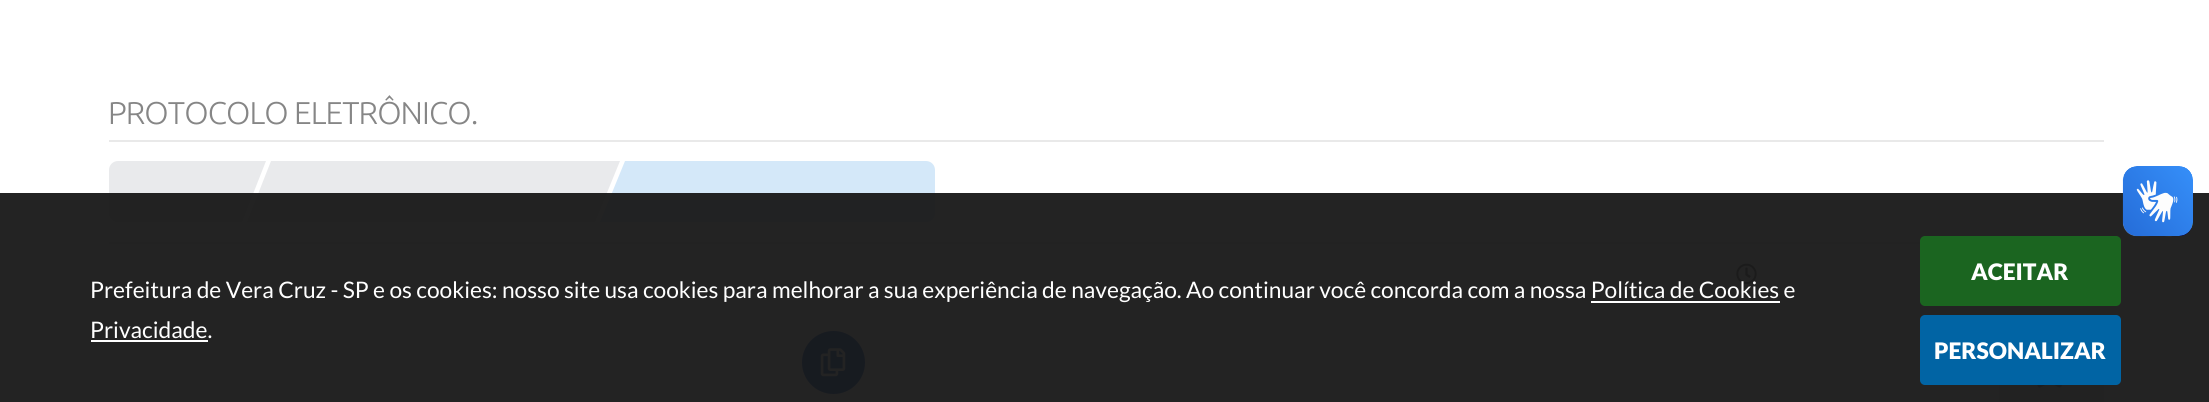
#include <cairo.h>
#include <math.h>
#include <stddef.h>

static cairo_t *ctx;

static void use_color(int r, int g, int b) {
    cairo_set_source_rgb(ctx, r / 255.0, g / 255.0, b / 255.0);
}

static void spaced_text(double x, double y, const char *s, double letter, double word) {
    cairo_move_to(ctx, x, y);
    while (*s) {
        char ch[5] = {0};
        int n = 0;
        do ch[n++] = *s++; while ((*s & 0xC0) == 0x80);
        cairo_show_text(ctx, ch);
        cairo_rel_move_to(ctx, letter + word * (*ch == ' '), 0);
    }
}

static void round_rect(double x, double y, double w, double h, double r) {
    cairo_new_sub_path(ctx);
    cairo_arc(ctx, x + w - r, y + h - r, r, 0, M_PI / 2);
    cairo_arc(ctx, x + r, y + h - r, r, M_PI / 2, M_PI);
    cairo_arc(ctx, x + r, y + r, r, M_PI, 1.5 * M_PI);
    cairo_arc(ctx, x + w - r, y + r, r, 1.5 * M_PI, 2 * M_PI);
    cairo_close_path(ctx);
}

static void picture(const char *path, double x, double y, double w, double h) {
    cairo_surface_t *image = cairo_image_surface_create_from_png(path);
    cairo_save(ctx);
    cairo_set_source_surface(ctx, image, x, y);
    cairo_rectangle(ctx, x, y, w, h);
    cairo_fill(ctx);
    cairo_restore(ctx);
    cairo_surface_destroy(image);
}

int main(void) {
    cairo_surface_t *surface = cairo_image_surface_create(CAIRO_FORMAT_RGB24, 2209, 402);
    ctx = cairo_create(surface);
    cairo_font_options_t *options = cairo_font_options_create();
    cairo_font_options_set_hint_metrics(options, CAIRO_HINT_METRICS_OFF);
    cairo_font_options_set_hint_style(options, CAIRO_HINT_STYLE_NONE);
    cairo_set_font_options(ctx, options);
    cairo_set_miter_limit(ctx, 4);
    use_color(255, 255, 255);
    cairo_paint(ctx);
    cairo_select_font_face(ctx, "Ubuntu Light", CAIRO_FONT_SLANT_NORMAL, CAIRO_FONT_WEIGHT_NORMAL);
    cairo_set_font_size(ctx, 31.5);
    use_color(134, 134, 134);
    spaced_text(108, 124, "PROTOCOLO ELETRÔNICO.", -0.9, 0);
    use_color(233, 233, 233);
    cairo_rectangle(ctx, 109, 140, 1995, 2);
    cairo_fill(ctx);
    cairo_rectangle(ctx, 109, 242, 1811, 2);
    cairo_fill(ctx);
    use_color(233, 234, 236);
    cairo_new_path(ctx);
    cairo_move_to(ctx, 118, 161);
    cairo_line_to(ctx, 242, 161);
    cairo_line_to(ctx, 242, 222);
    cairo_line_to(ctx, 118, 222);
    cairo_curve_to(ctx, 113, 222, 109, 218, 109, 213);
    cairo_line_to(ctx, 109, 170);
    cairo_curve_to(ctx, 109, 165, 113, 161, 118, 161);
    cairo_close_path(ctx);
    cairo_fill(ctx);
    cairo_new_path(ctx);
    cairo_move_to(ctx, 242, 161);
    cairo_line_to(ctx, 266, 161);
    cairo_line_to(ctx, 242, 222);
    cairo_close_path(ctx);
    cairo_fill(ctx);
    cairo_rectangle(ctx, 271, 161, 324, 61);
    cairo_fill(ctx);
    cairo_new_path(ctx);
    cairo_move_to(ctx, 271, 222);
    cairo_line_to(ctx, 247, 222);
    cairo_line_to(ctx, 271, 161);
    cairo_close_path(ctx);
    cairo_fill(ctx);
    cairo_new_path(ctx);
    cairo_move_to(ctx, 595, 161);
    cairo_line_to(ctx, 620, 161);
    cairo_line_to(ctx, 595, 222);
    cairo_close_path(ctx);
    cairo_fill(ctx);
    use_color(212, 232, 249);
    cairo_new_path(ctx);
    cairo_move_to(ctx, 625, 161);
    cairo_line_to(ctx, 926, 161);
    cairo_curve_to(ctx, 931, 161, 935, 165, 935, 170);
    cairo_line_to(ctx, 935, 213);
    cairo_curve_to(ctx, 935, 218, 931, 222, 926, 222);
    cairo_line_to(ctx, 625, 222);
    cairo_close_path(ctx);
    cairo_fill(ctx);
    cairo_new_path(ctx);
    cairo_move_to(ctx, 625, 222);
    cairo_line_to(ctx, 600, 222);
    cairo_line_to(ctx, 625, 161);
    cairo_close_path(ctx);
    cairo_fill(ctx);
    picture("img1.png", 1736, 263, 21, 21);
    use_color(7, 83, 200);
    cairo_arc(ctx, 833.5, 362.5, 31.5, 0, 2 * M_PI);
    cairo_fill(ctx);
    picture("img2.png", 820, 348, 26, 29);
    use_color(241, 243, 244);
    cairo_rectangle(ctx, 1999, 385, 105, 14);
    cairo_fill(ctx);
    picture("img3.png", 2037, 385, 25, 3);
    use_color(232, 235, 237);
    cairo_rectangle(ctx, 1999, 399, 105, 3);
    cairo_fill(ctx);
    cairo_set_source_rgba(ctx, 0.098, 0.098, 0.098, 0.95);
    cairo_rectangle(ctx, 0, 193, 2209, 209);
    cairo_fill(ctx);
    picture("img4.png", 2122, 166, 71, 71);
    picture("img5.png", 2123, 166, 70, 70);
    cairo_select_font_face(ctx, "Lato", CAIRO_FONT_SLANT_NORMAL, CAIRO_FONT_WEIGHT_NORMAL);
    cairo_set_font_size(ctx, 22.75);
    use_color(255, 255, 255);
    cairo_move_to(ctx, 90, 298);
    cairo_show_text(ctx, "Prefeitura de Vera Cruz - SP e os cookies: nosso site usa cookies para melhorar a sua experiência de navegação. Ao continuar você concorda com a nossa Política de Cookies e");
    cairo_move_to(ctx, 90, 338);
    cairo_show_text(ctx, "Privacidade.");
    cairo_rectangle(ctx, 1591, 301, 189, 2);
    cairo_fill(ctx);
    cairo_rectangle(ctx, 91, 340, 117, 2);
    cairo_fill(ctx);
    use_color(27, 101, 32);
    round_rect(1920, 236, 201, 70, 5);
    cairo_fill(ctx);
    cairo_select_font_face(ctx, "Lato Black", CAIRO_FONT_SLANT_NORMAL, CAIRO_FONT_WEIGHT_NORMAL);
    use_color(255, 255, 255);
    cairo_move_to(ctx, 1971, 280);
    cairo_show_text(ctx, "ACEITAR");
    use_color(1, 100, 164);
    round_rect(1920, 315, 201, 70, 5);
    cairo_fill(ctx);
    use_color(255, 255, 255);
    cairo_move_to(ctx, 1934, 359);
    cairo_show_text(ctx, "PERSONALIZAR");
    cairo_surface_write_to_png(surface, "result.png");
    cairo_font_options_destroy(options);
    cairo_destroy(ctx);
    cairo_surface_destroy(surface);
    return 0;
}
